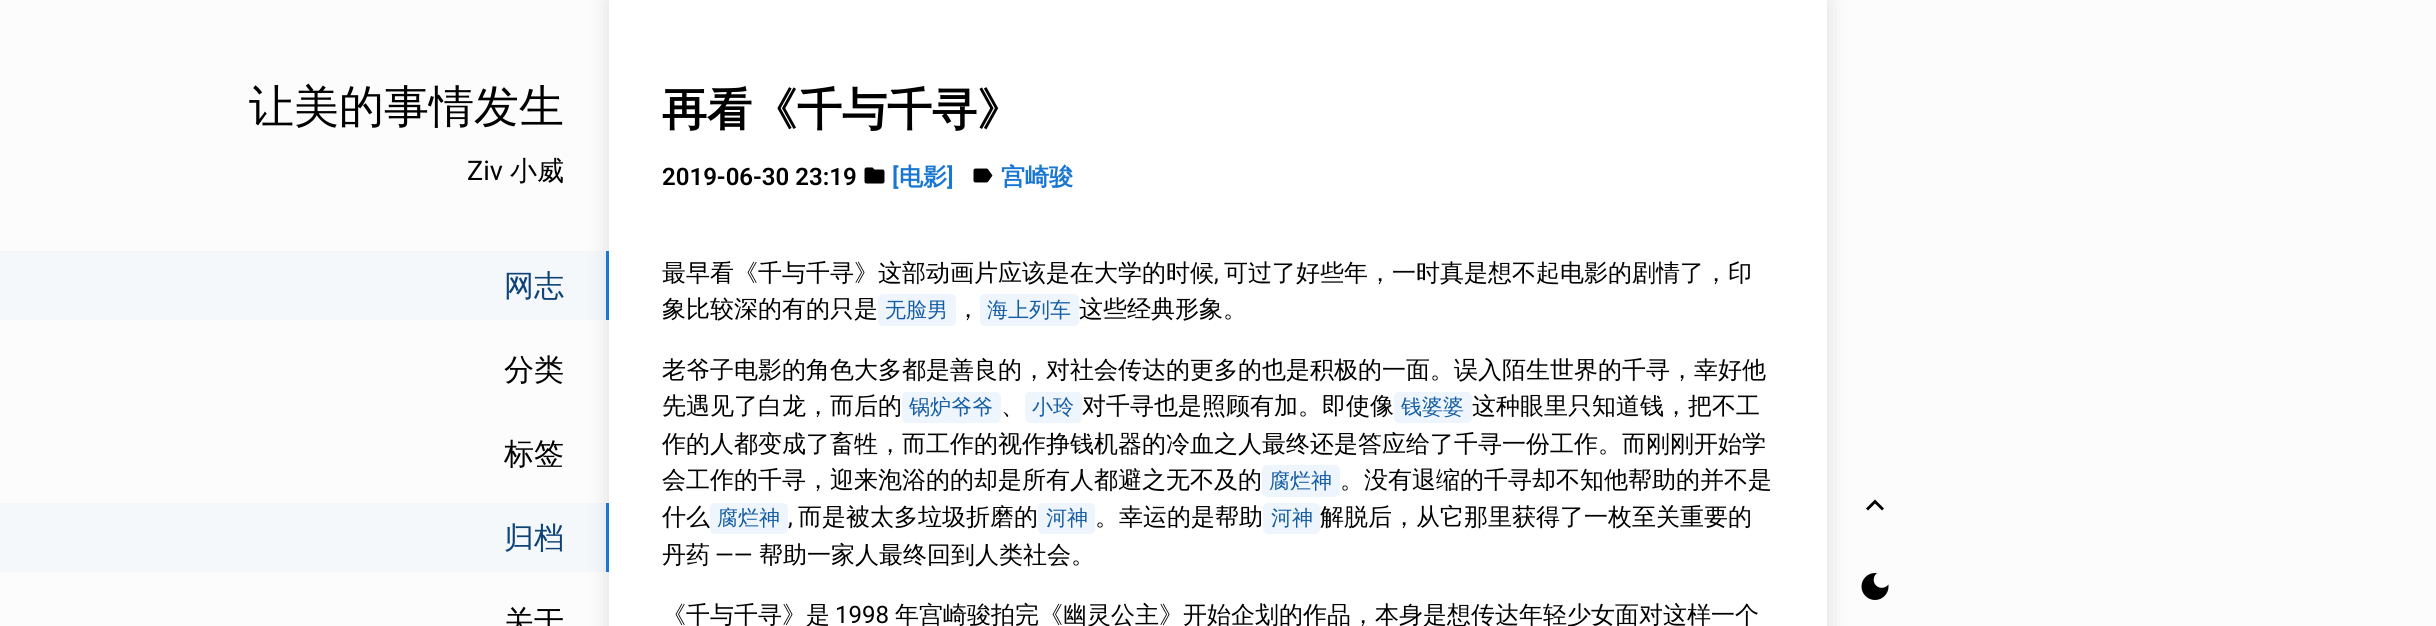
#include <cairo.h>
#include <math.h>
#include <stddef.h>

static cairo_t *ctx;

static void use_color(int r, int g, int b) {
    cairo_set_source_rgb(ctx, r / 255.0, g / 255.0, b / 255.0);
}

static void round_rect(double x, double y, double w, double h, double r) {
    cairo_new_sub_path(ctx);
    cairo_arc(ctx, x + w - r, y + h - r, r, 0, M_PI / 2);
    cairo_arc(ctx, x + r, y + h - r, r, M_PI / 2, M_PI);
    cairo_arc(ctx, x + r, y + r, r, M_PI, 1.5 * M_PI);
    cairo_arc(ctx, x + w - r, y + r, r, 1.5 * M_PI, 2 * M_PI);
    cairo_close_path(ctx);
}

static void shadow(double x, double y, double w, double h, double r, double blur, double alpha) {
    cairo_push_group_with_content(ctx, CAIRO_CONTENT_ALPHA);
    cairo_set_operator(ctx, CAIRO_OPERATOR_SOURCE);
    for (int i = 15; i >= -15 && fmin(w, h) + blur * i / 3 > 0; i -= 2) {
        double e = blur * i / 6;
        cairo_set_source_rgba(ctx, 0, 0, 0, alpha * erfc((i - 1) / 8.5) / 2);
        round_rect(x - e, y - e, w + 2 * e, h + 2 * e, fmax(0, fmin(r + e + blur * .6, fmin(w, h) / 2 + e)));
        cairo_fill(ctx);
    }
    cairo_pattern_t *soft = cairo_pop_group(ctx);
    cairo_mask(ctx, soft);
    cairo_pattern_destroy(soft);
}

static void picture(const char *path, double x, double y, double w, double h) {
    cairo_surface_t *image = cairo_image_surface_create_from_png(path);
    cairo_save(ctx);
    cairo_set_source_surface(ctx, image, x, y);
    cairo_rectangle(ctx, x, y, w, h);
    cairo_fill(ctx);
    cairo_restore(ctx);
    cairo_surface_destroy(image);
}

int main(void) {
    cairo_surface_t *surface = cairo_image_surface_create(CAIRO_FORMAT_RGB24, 2436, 626);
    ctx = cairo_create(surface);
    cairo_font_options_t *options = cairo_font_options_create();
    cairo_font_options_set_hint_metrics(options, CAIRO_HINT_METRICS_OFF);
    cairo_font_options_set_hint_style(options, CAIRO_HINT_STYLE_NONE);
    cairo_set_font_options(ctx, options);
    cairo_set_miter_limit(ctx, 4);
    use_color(252, 252, 252);
    cairo_paint(ctx);
    cairo_select_font_face(ctx, "WenQuanYi Zen Hei Medium", CAIRO_FONT_SLANT_NORMAL, CAIRO_FONT_WEIGHT_NORMAL);
    cairo_set_font_size(ctx, 45);
    use_color(0, 0, 0);
    cairo_move_to(ctx, 249, 122);
    cairo_show_text(ctx, "让美的事情发生");
    cairo_select_font_face(ctx, "Roboto", CAIRO_FONT_SLANT_NORMAL, CAIRO_FONT_WEIGHT_NORMAL);
    cairo_set_font_size(ctx, 27);
    cairo_move_to(ctx, 467, 180);
    cairo_show_text(ctx, "Ziv");
    cairo_select_font_face(ctx, "WenQuanYi Zen Hei Medium", CAIRO_FONT_SLANT_NORMAL, CAIRO_FONT_WEIGHT_NORMAL);
    cairo_move_to(ctx, 510, 180);
    cairo_show_text(ctx, "小威");
    use_color(0, 0, 0);
    shadow(609, 0, 1218, 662, 0, 12, 0.12);
    cairo_set_source_rgba(ctx, 0.098, 0.463, 0.824, 0.03);
    cairo_rectangle(ctx, 0, 251, 606, 69);
    cairo_fill(ctx);
    use_color(25, 118, 210);
    cairo_rectangle(ctx, 606, 251, 3, 69);
    cairo_fill(ctx);
    cairo_set_font_size(ctx, 30);
    use_color(14, 67, 119);
    cairo_move_to(ctx, 504, 296);
    cairo_show_text(ctx, "网志");
    use_color(0, 0, 0);
    cairo_move_to(ctx, 504, 380);
    cairo_show_text(ctx, "分类");
    cairo_move_to(ctx, 504, 464);
    cairo_show_text(ctx, "标签");
    cairo_set_source_rgba(ctx, 0.098, 0.463, 0.824, 0.03);
    cairo_rectangle(ctx, 0, 503, 606, 69);
    cairo_fill(ctx);
    use_color(25, 118, 210);
    cairo_rectangle(ctx, 606, 503, 3, 69);
    cairo_fill(ctx);
    use_color(14, 67, 119);
    cairo_move_to(ctx, 504, 548);
    cairo_show_text(ctx, "归档");
    use_color(0, 0, 0);
    cairo_move_to(ctx, 504, 632);
    cairo_show_text(ctx, "关于");
    use_color(255, 255, 255);
    cairo_rectangle(ctx, 609, 0, 1218, 626);
    cairo_fill(ctx);
    cairo_select_font_face(ctx, "WenQuanYi Zen Hei", CAIRO_FONT_SLANT_NORMAL, CAIRO_FONT_WEIGHT_BOLD);
    cairo_set_font_size(ctx, 45);
    use_color(0, 0, 0);
    cairo_move_to(ctx, 662, 125);
    cairo_show_text(ctx, "再看《千与千寻》");
    cairo_select_font_face(ctx, "Roboto SemiBold", CAIRO_FONT_SLANT_NORMAL, CAIRO_FONT_WEIGHT_NORMAL);
    cairo_set_font_size(ctx, 24);
    cairo_move_to(ctx, 662, 185);
    cairo_show_text(ctx, "2019-06-30 23:19");
    picture("img1.png", 864, 167, 21, 17);
    use_color(25, 118, 210);
    cairo_move_to(ctx, 892, 185);
    cairo_show_text(ctx, "[");
    cairo_select_font_face(ctx, "WenQuanYi Zen Hei", CAIRO_FONT_SLANT_NORMAL, CAIRO_FONT_WEIGHT_BOLD);
    cairo_move_to(ctx, 899, 185);
    cairo_show_text(ctx, "电影");
    cairo_select_font_face(ctx, "Roboto SemiBold", CAIRO_FONT_SLANT_NORMAL, CAIRO_FONT_WEIGHT_NORMAL);
    cairo_move_to(ctx, 947, 185);
    cairo_show_text(ctx, "]");
    picture("img2.png", 973, 168, 20, 15);
    cairo_select_font_face(ctx, "WenQuanYi Zen Hei", CAIRO_FONT_SLANT_NORMAL, CAIRO_FONT_WEIGHT_BOLD);
    cairo_move_to(ctx, 1001, 185);
    cairo_show_text(ctx, "宫崎骏");
    cairo_select_font_face(ctx, "WenQuanYi Zen Hei Medium", CAIRO_FONT_SLANT_NORMAL, CAIRO_FONT_WEIGHT_NORMAL);
    use_color(0, 0, 0);
    cairo_move_to(ctx, 662, 281);
    cairo_show_text(ctx, "最早看《千与千寻》这部动画片应该是在大学的时候");
    cairo_select_font_face(ctx, "Roboto", CAIRO_FONT_SLANT_NORMAL, CAIRO_FONT_WEIGHT_NORMAL);
    cairo_move_to(ctx, 1214, 281);
    cairo_show_text(ctx, ",");
    cairo_select_font_face(ctx, "WenQuanYi Zen Hei Medium", CAIRO_FONT_SLANT_NORMAL, CAIRO_FONT_WEIGHT_NORMAL);
    cairo_move_to(ctx, 1224, 281);
    cairo_show_text(ctx, "可过了好些年，一时真是想不起电影的剧情了，印");
    cairo_move_to(ctx, 662, 317);
    cairo_show_text(ctx, "象比较深的有的只是");
    use_color(239, 245, 252);
    round_rect(878, 294, 78, 32, 5);
    cairo_fill(ctx);
    cairo_set_font_size(ctx, 21);
    use_color(20, 92, 164);
    cairo_move_to(ctx, 885, 317);
    cairo_show_text(ctx, "无脸男");
    cairo_set_font_size(ctx, 24);
    use_color(0, 0, 0);
    cairo_move_to(ctx, 956, 317);
    cairo_show_text(ctx, "，");
    use_color(239, 245, 252);
    round_rect(980, 294, 99, 32, 5);
    cairo_fill(ctx);
    cairo_set_font_size(ctx, 21);
    use_color(20, 92, 164);
    cairo_move_to(ctx, 987, 317);
    cairo_show_text(ctx, "海上列车");
    cairo_set_font_size(ctx, 24);
    use_color(0, 0, 0);
    cairo_move_to(ctx, 1079, 317);
    cairo_show_text(ctx, "这些经典形象。");
    cairo_move_to(ctx, 662, 378);
    cairo_show_text(ctx, "老爷子电影的角色大多都是善良的，对社会传达的更多的也是积极的一面。误入陌生世界的千寻，幸好他");
    cairo_move_to(ctx, 662, 414);
    cairo_show_text(ctx, "先遇见了白龙，而后的");
    use_color(239, 245, 252);
    round_rect(902, 392, 99, 31, 5);
    cairo_fill(ctx);
    cairo_set_font_size(ctx, 21);
    use_color(20, 92, 164);
    cairo_move_to(ctx, 909, 414);
    cairo_show_text(ctx, "锅炉爷爷");
    cairo_set_font_size(ctx, 24);
    use_color(0, 0, 0);
    cairo_move_to(ctx, 1001, 414);
    cairo_show_text(ctx, "、");
    use_color(239, 245, 252);
    round_rect(1025, 392, 57, 31, 5);
    cairo_fill(ctx);
    cairo_set_font_size(ctx, 21);
    use_color(20, 92, 164);
    cairo_move_to(ctx, 1032, 414);
    cairo_show_text(ctx, "小玲");
    cairo_set_font_size(ctx, 24);
    use_color(0, 0, 0);
    cairo_move_to(ctx, 1082, 414);
    cairo_show_text(ctx, "对千寻也是照顾有加。即使像");
    use_color(239, 245, 252);
    round_rect(1394, 392, 78, 31, 5);
    cairo_fill(ctx);
    cairo_set_font_size(ctx, 21);
    use_color(20, 92, 164);
    cairo_move_to(ctx, 1401, 414);
    cairo_show_text(ctx, "钱婆婆");
    cairo_set_font_size(ctx, 24);
    use_color(0, 0, 0);
    cairo_move_to(ctx, 1472, 414);
    cairo_show_text(ctx, "这种眼里只知道钱，把不工");
    cairo_move_to(ctx, 662, 452);
    cairo_show_text(ctx, "作的人都变成了畜牲，而工作的视作挣钱机器的冷血之人最终还是答应给了千寻一份工作。而刚刚开始学");
    cairo_move_to(ctx, 662, 488);
    cairo_show_text(ctx, "会工作的千寻，迎来泡浴的的却是所有人都避之无不及的");
    use_color(239, 245, 252);
    round_rect(1262, 465, 78, 32, 5);
    cairo_fill(ctx);
    cairo_set_font_size(ctx, 21);
    use_color(20, 92, 164);
    cairo_move_to(ctx, 1269, 488);
    cairo_show_text(ctx, "腐烂神");
    cairo_set_font_size(ctx, 24);
    use_color(0, 0, 0);
    cairo_move_to(ctx, 1340, 488);
    cairo_show_text(ctx, "。没有退缩的千寻却不知他帮助的并不是");
    cairo_move_to(ctx, 662, 525);
    cairo_show_text(ctx, "什么");
    use_color(239, 245, 252);
    round_rect(710, 503, 78, 31, 5);
    cairo_fill(ctx);
    cairo_set_font_size(ctx, 21);
    use_color(20, 92, 164);
    cairo_move_to(ctx, 717, 525);
    cairo_show_text(ctx, "腐烂神");
    cairo_select_font_face(ctx, "Roboto", CAIRO_FONT_SLANT_NORMAL, CAIRO_FONT_WEIGHT_NORMAL);
    cairo_set_font_size(ctx, 24);
    use_color(0, 0, 0);
    cairo_move_to(ctx, 788, 525);
    cairo_show_text(ctx, ",");
    cairo_select_font_face(ctx, "WenQuanYi Zen Hei Medium", CAIRO_FONT_SLANT_NORMAL, CAIRO_FONT_WEIGHT_NORMAL);
    cairo_move_to(ctx, 798, 525);
    cairo_show_text(ctx, "而是被太多垃圾折磨的");
    use_color(239, 245, 252);
    round_rect(1038, 503, 57, 31, 5);
    cairo_fill(ctx);
    cairo_set_font_size(ctx, 21);
    use_color(20, 92, 164);
    cairo_move_to(ctx, 1046, 525);
    cairo_show_text(ctx, "河神");
    cairo_set_font_size(ctx, 24);
    use_color(0, 0, 0);
    cairo_move_to(ctx, 1095, 525);
    cairo_show_text(ctx, "。幸运的是帮助");
    use_color(239, 245, 252);
    round_rect(1263, 503, 57, 31, 5);
    cairo_fill(ctx);
    cairo_set_font_size(ctx, 21);
    use_color(20, 92, 164);
    cairo_move_to(ctx, 1271, 525);
    cairo_show_text(ctx, "河神");
    cairo_set_font_size(ctx, 24);
    use_color(0, 0, 0);
    cairo_move_to(ctx, 1320, 525);
    cairo_show_text(ctx, "解脱后，从它那里获得了一枚至关重要的");
    cairo_move_to(ctx, 662, 563);
    cairo_show_text(ctx, "丹药");
    cairo_select_font_face(ctx, "Roboto", CAIRO_FONT_SLANT_NORMAL, CAIRO_FONT_WEIGHT_NORMAL);
    cairo_move_to(ctx, 715, 563);
    cairo_show_text(ctx, "——");
    cairo_select_font_face(ctx, "WenQuanYi Zen Hei Medium", CAIRO_FONT_SLANT_NORMAL, CAIRO_FONT_WEIGHT_NORMAL);
    cairo_move_to(ctx, 759, 563);
    cairo_show_text(ctx, "帮助一家人最终回到人类社会。");
    cairo_move_to(ctx, 662, 623);
    cairo_show_text(ctx, "《千与千寻》是");
    cairo_select_font_face(ctx, "Roboto", CAIRO_FONT_SLANT_NORMAL, CAIRO_FONT_WEIGHT_NORMAL);
    cairo_move_to(ctx, 835, 623);
    cairo_show_text(ctx, "1998");
    cairo_select_font_face(ctx, "WenQuanYi Zen Hei Medium", CAIRO_FONT_SLANT_NORMAL, CAIRO_FONT_WEIGHT_NORMAL);
    cairo_move_to(ctx, 895, 623);
    cairo_show_text(ctx, "年宫崎骏拍完《幽灵公主》开始企划的作品，本身是想传达年轻少女面对这样一个");
    cairo_new_path(ctx);
    cairo_move_to(ctx, 1868, 510.5);
    cairo_line_to(ctx, 1866, 508.5);
    cairo_line_to(ctx, 1875, 499.5);
    cairo_line_to(ctx, 1884, 508.5);
    cairo_line_to(ctx, 1882, 510.5);
    cairo_line_to(ctx, 1875, 503.5);
    cairo_close_path(ctx);
    cairo_fill(ctx);
    picture("img3.png", 1861, 573, 28, 27);
    cairo_surface_write_to_png(surface, "result.png");
    cairo_font_options_destroy(options);
    cairo_destroy(ctx);
    cairo_surface_destroy(surface);
    return 0;
}
